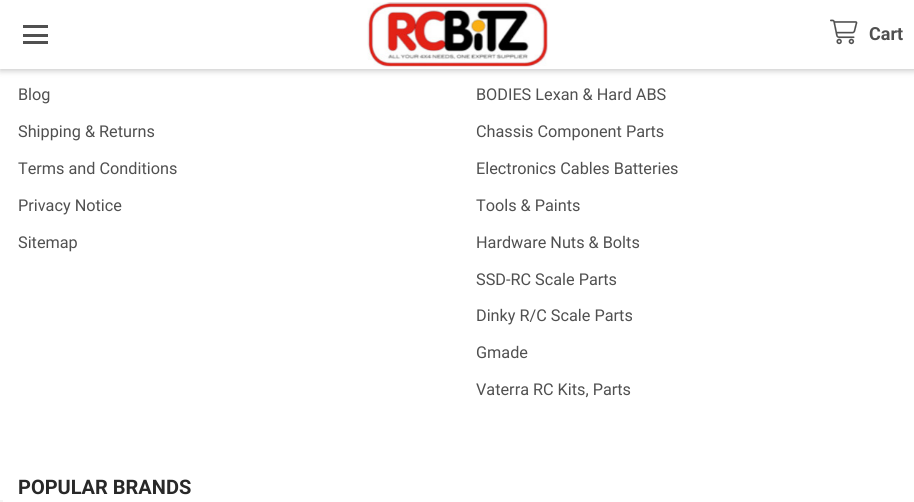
#include <cairo.h>
#include <math.h>
#include <stddef.h>

static cairo_t *ctx;

static void use_color(int r, int g, int b) {
    cairo_set_source_rgb(ctx, r / 255.0, g / 255.0, b / 255.0);
}

static void round_rect(double x, double y, double w, double h, double r) {
    cairo_new_sub_path(ctx);
    cairo_arc(ctx, x + w - r, y + h - r, r, 0, M_PI / 2);
    cairo_arc(ctx, x + r, y + h - r, r, M_PI / 2, M_PI);
    cairo_arc(ctx, x + r, y + r, r, M_PI, 1.5 * M_PI);
    cairo_arc(ctx, x + w - r, y + r, r, 1.5 * M_PI, 2 * M_PI);
    cairo_close_path(ctx);
}

static void shadow(double x, double y, double w, double h, double r, double blur, double alpha) {
    cairo_push_group_with_content(ctx, CAIRO_CONTENT_ALPHA);
    cairo_set_operator(ctx, CAIRO_OPERATOR_SOURCE);
    for (int i = 15; i >= -15 && fmin(w, h) + blur * i / 3 > 0; i -= 2) {
        double e = blur * i / 6;
        cairo_set_source_rgba(ctx, 0, 0, 0, alpha * erfc((i - 1) / 8.5) / 2);
        round_rect(x - e, y - e, w + 2 * e, h + 2 * e, fmax(0, fmin(r + e + blur * .6, fmin(w, h) / 2 + e)));
        cairo_fill(ctx);
    }
    cairo_pattern_t *soft = cairo_pop_group(ctx);
    cairo_mask(ctx, soft);
    cairo_pattern_destroy(soft);
}

static void picture(const char *path, double x, double y, double w, double h) {
    cairo_surface_t *image = cairo_image_surface_create_from_png(path);
    cairo_save(ctx);
    cairo_set_source_surface(ctx, image, x, y);
    cairo_rectangle(ctx, x, y, w, h);
    cairo_fill(ctx);
    cairo_restore(ctx);
    cairo_surface_destroy(image);
}

int main(void) {
    cairo_surface_t *surface = cairo_image_surface_create(CAIRO_FORMAT_RGB24, 914, 502);
    ctx = cairo_create(surface);
    cairo_font_options_t *options = cairo_font_options_create();
    cairo_font_options_set_hint_metrics(options, CAIRO_HINT_METRICS_OFF);
    cairo_font_options_set_hint_style(options, CAIRO_HINT_STYLE_NONE);
    cairo_set_font_options(ctx, options);
    cairo_set_miter_limit(ctx, 4);
    use_color(255, 255, 255);
    cairo_paint(ctx);
    use_color(0, 0, 0);
    shadow(0, 3, 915, 68, 0, 3, 0.2);
    use_color(255, 255, 255);
    cairo_rectangle(ctx, 0, 0, 914, 69);
    cairo_fill(ctx);
    use_color(80, 80, 80);
    cairo_rectangle(ctx, 23, 34, 25, 3);
    cairo_fill(ctx);
    cairo_rectangle(ctx, 23, 25, 25, 3);
    cairo_fill(ctx);
    cairo_rectangle(ctx, 23, 41, 25, 3);
    cairo_fill(ctx);
    picture("img1.png", 367, 2, 181, 65);
    picture("img2.png", 830, 19, 28, 26);
    cairo_select_font_face(ctx, "Roboto", CAIRO_FONT_SLANT_NORMAL, CAIRO_FONT_WEIGHT_BOLD);
    cairo_set_font_size(ctx, 18);
    cairo_move_to(ctx, 869, 40);
    cairo_show_text(ctx, "Cart");
    cairo_select_font_face(ctx, "Roboto", CAIRO_FONT_SLANT_NORMAL, CAIRO_FONT_WEIGHT_NORMAL);
    cairo_set_font_size(ctx, 16.25);
    cairo_move_to(ctx, 18, 100);
    cairo_show_text(ctx, "Blog");
    cairo_move_to(ctx, 18, 137);
    cairo_show_text(ctx, "Shipping & Returns");
    cairo_move_to(ctx, 18, 174);
    cairo_show_text(ctx, "Terms and Conditions");
    cairo_move_to(ctx, 18, 211);
    cairo_show_text(ctx, "Privacy Notice");
    cairo_move_to(ctx, 18, 248);
    cairo_show_text(ctx, "Sitemap");
    cairo_move_to(ctx, 476, 100);
    cairo_show_text(ctx, "BODIES Lexan & Hard ABS");
    cairo_move_to(ctx, 476, 137);
    cairo_show_text(ctx, "Chassis Component Parts");
    cairo_move_to(ctx, 476, 174);
    cairo_show_text(ctx, "Electronics Cables Batteries");
    cairo_move_to(ctx, 476, 211);
    cairo_show_text(ctx, "Tools & Paints");
    cairo_move_to(ctx, 476, 248);
    cairo_show_text(ctx, "Hardware Nuts & Bolts");
    cairo_move_to(ctx, 476, 285);
    cairo_show_text(ctx, "SSD-RC Scale Parts");
    cairo_move_to(ctx, 476, 321);
    cairo_show_text(ctx, "Dinky R/C Scale Parts");
    cairo_move_to(ctx, 476, 358);
    cairo_show_text(ctx, "Gmade");
    cairo_move_to(ctx, 476, 395);
    cairo_show_text(ctx, "Vaterra RC Kits, Parts");
    cairo_select_font_face(ctx, "Roboto", CAIRO_FONT_SLANT_NORMAL, CAIRO_FONT_WEIGHT_BOLD);
    cairo_set_font_size(ctx, 20);
    use_color(40, 40, 40);
    cairo_move_to(ctx, 18, 494);
    cairo_show_text(ctx, "POPULAR BRANDS");
    use_color(245, 245, 245);
    cairo_rectangle(ctx, 0, 500, 3, 2);
    cairo_fill(ctx);
    cairo_surface_write_to_png(surface, "result.png");
    cairo_font_options_destroy(options);
    cairo_destroy(ctx);
    cairo_surface_destroy(surface);
    return 0;
}
